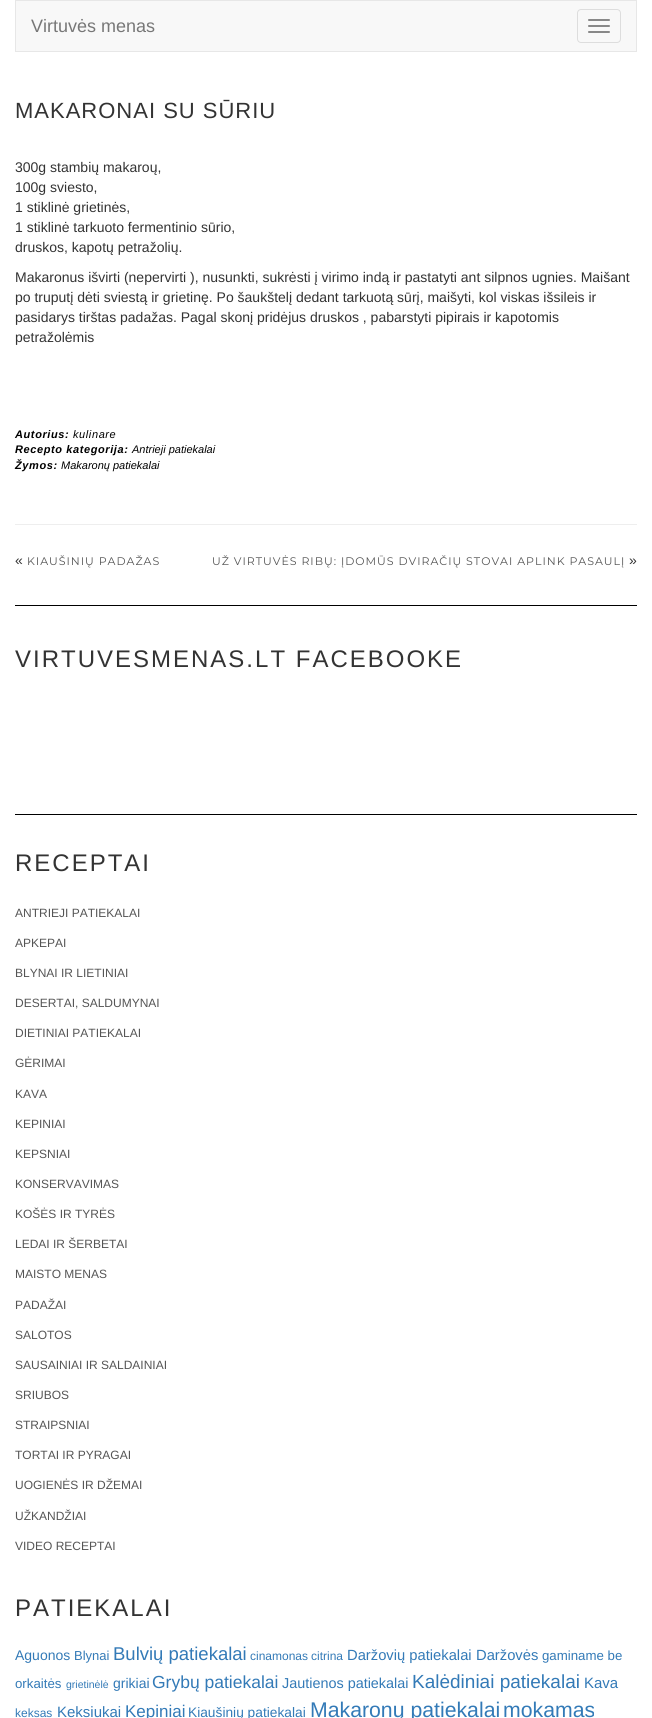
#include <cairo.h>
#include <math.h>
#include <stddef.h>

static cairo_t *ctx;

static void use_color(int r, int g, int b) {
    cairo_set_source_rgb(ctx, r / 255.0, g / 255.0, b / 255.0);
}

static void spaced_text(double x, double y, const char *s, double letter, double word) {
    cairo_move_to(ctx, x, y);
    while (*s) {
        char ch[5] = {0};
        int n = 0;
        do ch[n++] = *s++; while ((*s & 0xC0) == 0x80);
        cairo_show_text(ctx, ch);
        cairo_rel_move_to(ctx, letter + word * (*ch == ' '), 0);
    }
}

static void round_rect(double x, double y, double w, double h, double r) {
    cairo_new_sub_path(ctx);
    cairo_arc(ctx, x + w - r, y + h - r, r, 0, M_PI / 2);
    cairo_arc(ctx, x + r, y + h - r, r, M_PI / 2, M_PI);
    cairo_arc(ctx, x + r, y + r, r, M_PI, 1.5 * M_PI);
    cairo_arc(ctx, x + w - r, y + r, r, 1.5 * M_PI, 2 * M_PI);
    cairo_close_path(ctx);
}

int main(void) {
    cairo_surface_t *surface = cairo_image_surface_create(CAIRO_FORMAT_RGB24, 652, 1718);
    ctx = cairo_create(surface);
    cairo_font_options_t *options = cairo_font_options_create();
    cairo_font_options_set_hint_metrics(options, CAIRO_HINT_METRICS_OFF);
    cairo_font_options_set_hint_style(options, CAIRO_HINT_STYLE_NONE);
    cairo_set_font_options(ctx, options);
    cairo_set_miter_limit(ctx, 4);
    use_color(255, 255, 255);
    cairo_paint(ctx);
    use_color(248, 248, 248);
    cairo_rectangle(ctx, 15.5, 0.5, 621, 51);
    cairo_fill_preserve(ctx);
    use_color(231, 231, 231);
    cairo_set_line_width(ctx, 1);
    cairo_stroke(ctx);
    cairo_select_font_face(ctx, "Liberation Sans", CAIRO_FONT_SLANT_NORMAL, CAIRO_FONT_WEIGHT_NORMAL);
    cairo_set_font_size(ctx, 18);
    use_color(119, 119, 119);
    cairo_move_to(ctx, 31, 32);
    cairo_show_text(ctx, "Virtuvės menas");
    round_rect(577.5, 9.5, 43, 33, 3.5);
    use_color(221, 221, 221);
    cairo_stroke(ctx);
    use_color(136, 136, 136);
    round_rect(588, 19, 22, 2, 1);
    cairo_fill(ctx);
    round_rect(588, 25, 22, 2, 1);
    cairo_fill(ctx);
    round_rect(588, 31, 22, 2, 1);
    cairo_fill(ctx);
    cairo_set_font_size(ctx, 22);
    use_color(51, 51, 51);
    spaced_text(15, 118, "MAKARONAI SU SŪRIU", 1, 0);
    cairo_set_font_size(ctx, 14);
    cairo_move_to(ctx, 15, 172);
    cairo_show_text(ctx, "300g stambių makaroų,");
    cairo_move_to(ctx, 15, 192);
    cairo_show_text(ctx, "100g sviesto,");
    cairo_move_to(ctx, 15, 212);
    cairo_show_text(ctx, "1 stiklinė grietinės,");
    cairo_move_to(ctx, 15, 232);
    cairo_show_text(ctx, "1 stiklinė tarkuoto fermentinio sūrio,");
    cairo_move_to(ctx, 15, 252);
    cairo_show_text(ctx, "druskos, kapotų petražolių.");
    cairo_move_to(ctx, 15, 282);
    cairo_show_text(ctx, "Makaronus išvirti (nepervirti ), nusunkti, sukrėsti į virimo indą ir pastatyti ant silpnos ugnies. Maišant");
    cairo_move_to(ctx, 15, 302);
    cairo_show_text(ctx, "po truputį dėti sviestą ir grietinę. Po šaukštelį dedant tarkuotą sūrį, maišyti, kol viskas išsileis ir");
    cairo_move_to(ctx, 15, 322);
    cairo_show_text(ctx, "pasidarys tirštas padažas. Pagal skonį pridėjus druskos , pabarstyti pipirais ir kapotomis");
    cairo_move_to(ctx, 15, 342);
    cairo_show_text(ctx, "petražolėmis");
    cairo_select_font_face(ctx, "Liberation Sans", CAIRO_FONT_SLANT_ITALIC, CAIRO_FONT_WEIGHT_BOLD);
    cairo_set_font_size(ctx, 11);
    use_color(0, 0, 0);
    spaced_text(15, 438, "Autorius:", 0.6, 0);
    cairo_select_font_face(ctx, "Liberation Sans", CAIRO_FONT_SLANT_ITALIC, CAIRO_FONT_WEIGHT_NORMAL);
    spaced_text(73, 438, "kulinare", 0.6, 0);
    cairo_select_font_face(ctx, "Liberation Sans", CAIRO_FONT_SLANT_ITALIC, CAIRO_FONT_WEIGHT_BOLD);
    spaced_text(15, 453, "Recepto kategorija:", 0.6, 0);
    cairo_select_font_face(ctx, "Liberation Sans", CAIRO_FONT_SLANT_ITALIC, CAIRO_FONT_WEIGHT_NORMAL);
    cairo_move_to(ctx, 132, 453);
    cairo_show_text(ctx, "Antrieji patiekalai");
    cairo_select_font_face(ctx, "Liberation Sans", CAIRO_FONT_SLANT_ITALIC, CAIRO_FONT_WEIGHT_BOLD);
    spaced_text(15, 469, "Žymos:", 0.6, 0);
    cairo_select_font_face(ctx, "Liberation Sans", CAIRO_FONT_SLANT_ITALIC, CAIRO_FONT_WEIGHT_NORMAL);
    cairo_move_to(ctx, 61, 469);
    cairo_show_text(ctx, "Makaronų patiekalai");
    use_color(238, 238, 238);
    cairo_rectangle(ctx, 15, 524, 622, 1);
    cairo_fill(ctx);
    cairo_select_font_face(ctx, "Liberation Sans", CAIRO_FONT_SLANT_NORMAL, CAIRO_FONT_WEIGHT_NORMAL);
    cairo_set_font_size(ctx, 14);
    use_color(51, 51, 51);
    cairo_move_to(ctx, 15, 565);
    cairo_show_text(ctx, "«");
    cairo_select_font_face(ctx, "Montserrat", CAIRO_FONT_SLANT_NORMAL, CAIRO_FONT_WEIGHT_NORMAL);
    cairo_set_font_size(ctx, 11);
    use_color(85, 85, 85);
    spaced_text(27, 565, "KIAUŠINIŲ PADAŽAS", 1, 0);
    spaced_text(212, 565, "UŽ VIRTUVĖS RIBŲ: ĮDOMŪS DVIRAČIŲ STOVAI APLINK PASAULĮ", 1, 0);
    cairo_select_font_face(ctx, "Liberation Sans", CAIRO_FONT_SLANT_NORMAL, CAIRO_FONT_WEIGHT_NORMAL);
    cairo_set_font_size(ctx, 14);
    use_color(51, 51, 51);
    cairo_move_to(ctx, 629, 565);
    cairo_show_text(ctx, "»");
    use_color(0, 0, 0);
    cairo_rectangle(ctx, 15, 605, 622, 1);
    cairo_fill(ctx);
    cairo_rectangle(ctx, 15, 814, 622, 1);
    cairo_fill(ctx);
    cairo_set_font_size(ctx, 24);
    use_color(51, 51, 51);
    spaced_text(15, 667, "VIRTUVESMENAS.LT FACEBOOKE", 2, 0);
    spaced_text(15, 871, "RECEPTAI", 2, 0);
    cairo_set_font_size(ctx, 12);
    use_color(85, 85, 85);
    cairo_move_to(ctx, 15, 917);
    cairo_show_text(ctx, "ANTRIEJI PATIEKALAI");
    cairo_move_to(ctx, 15, 947);
    cairo_show_text(ctx, "APKEPAI");
    cairo_move_to(ctx, 15, 977);
    cairo_show_text(ctx, "BLYNAI IR LIETINIAI");
    cairo_move_to(ctx, 15, 1007);
    cairo_show_text(ctx, "DESERTAI, SALDUMYNAI");
    cairo_move_to(ctx, 15, 1037);
    cairo_show_text(ctx, "DIETINIAI PATIEKALAI");
    cairo_move_to(ctx, 15, 1067);
    cairo_show_text(ctx, "GĖRIMAI");
    cairo_move_to(ctx, 15, 1098);
    cairo_show_text(ctx, "KAVA");
    cairo_move_to(ctx, 15, 1128);
    cairo_show_text(ctx, "KEPINIAI");
    cairo_move_to(ctx, 15, 1158);
    cairo_show_text(ctx, "KEPSNIAI");
    cairo_move_to(ctx, 15, 1188);
    cairo_show_text(ctx, "KONSERVAVIMAS");
    cairo_move_to(ctx, 15, 1218);
    cairo_show_text(ctx, "KOŠĖS IR TYRĖS");
    cairo_move_to(ctx, 15, 1248);
    cairo_show_text(ctx, "LEDAI IR ŠERBETAI");
    cairo_move_to(ctx, 15, 1278);
    cairo_show_text(ctx, "MAISTO MENAS");
    cairo_move_to(ctx, 15, 1309);
    cairo_show_text(ctx, "PADAŽAI");
    cairo_move_to(ctx, 15, 1339);
    cairo_show_text(ctx, "SALOTOS");
    cairo_move_to(ctx, 15, 1369);
    cairo_show_text(ctx, "SAUSAINIAI IR SALDAINIAI");
    cairo_move_to(ctx, 15, 1399);
    cairo_show_text(ctx, "SRIUBOS");
    cairo_move_to(ctx, 15, 1429);
    cairo_show_text(ctx, "STRAIPSNIAI");
    cairo_move_to(ctx, 15, 1459);
    cairo_show_text(ctx, "TORTAI IR PYRAGAI");
    cairo_move_to(ctx, 15, 1489);
    cairo_show_text(ctx, "UOGIENĖS IR DŽEMAI");
    cairo_move_to(ctx, 15, 1520);
    cairo_show_text(ctx, "UŽKANDŽIAI");
    cairo_move_to(ctx, 15, 1550);
    cairo_show_text(ctx, "VIDEO RECEPTAI");
    cairo_set_font_size(ctx, 24);
    use_color(51, 51, 51);
    spaced_text(15, 1616, "PATIEKALAI", 2, 0);
    cairo_set_font_size(ctx, 14);
    use_color(51, 122, 183);
    cairo_move_to(ctx, 15, 1660);
    cairo_show_text(ctx, "Aguonos");
    cairo_set_font_size(ctx, 13);
    cairo_move_to(ctx, 74, 1660);
    cairo_show_text(ctx, "Blynai");
    cairo_set_font_size(ctx, 18.5);
    cairo_move_to(ctx, 113, 1660);
    cairo_show_text(ctx, "Bulvių patiekalai");
    cairo_set_font_size(ctx, 12);
    cairo_move_to(ctx, 250, 1660);
    cairo_show_text(ctx, "cinamonas");
    cairo_move_to(ctx, 311, 1660);
    cairo_show_text(ctx, "citrina");
    cairo_set_font_size(ctx, 14.75);
    cairo_move_to(ctx, 347, 1660);
    cairo_show_text(ctx, "Daržovių patiekalai");
    cairo_move_to(ctx, 476, 1660);
    cairo_show_text(ctx, "Daržovės");
    cairo_set_font_size(ctx, 13.25);
    cairo_move_to(ctx, 542, 1660);
    cairo_show_text(ctx, "gaminame be");
    cairo_move_to(ctx, 15, 1688);
    cairo_show_text(ctx, "orkaitės");
    cairo_set_font_size(ctx, 10.5);
    cairo_move_to(ctx, 66, 1688);
    cairo_show_text(ctx, "grietinėlė");
    cairo_set_font_size(ctx, 14);
    cairo_move_to(ctx, 113, 1688);
    cairo_show_text(ctx, "grikiai");
    cairo_set_font_size(ctx, 17.5);
    cairo_move_to(ctx, 152, 1688);
    cairo_show_text(ctx, "Grybų patiekalai");
    cairo_set_font_size(ctx, 14.4);
    cairo_move_to(ctx, 282, 1688);
    cairo_show_text(ctx, "Jautienos patiekalai");
    cairo_set_font_size(ctx, 19);
    cairo_move_to(ctx, 412, 1688);
    cairo_show_text(ctx, "Kalėdiniai patiekalai");
    cairo_set_font_size(ctx, 15);
    cairo_move_to(ctx, 584, 1688);
    cairo_show_text(ctx, "Kava");
    cairo_set_font_size(ctx, 12);
    cairo_move_to(ctx, 15, 1717);
    cairo_show_text(ctx, "keksas");
    cairo_set_font_size(ctx, 15);
    cairo_move_to(ctx, 57, 1717);
    cairo_show_text(ctx, "Keksiukai");
    cairo_set_font_size(ctx, 17);
    cairo_move_to(ctx, 125, 1717);
    cairo_show_text(ctx, "Kepiniai");
    cairo_set_font_size(ctx, 13.75);
    cairo_move_to(ctx, 188, 1717);
    cairo_show_text(ctx, "Kiaušinių patiekalai");
    cairo_set_font_size(ctx, 21.25);
    cairo_move_to(ctx, 310, 1717);
    cairo_show_text(ctx, "Makaronų patiekalai");
    cairo_move_to(ctx, 503, 1717);
    cairo_show_text(ctx, "mokamas");
    cairo_surface_write_to_png(surface, "result.png");
    cairo_font_options_destroy(options);
    cairo_destroy(ctx);
    cairo_surface_destroy(surface);
    return 0;
}
